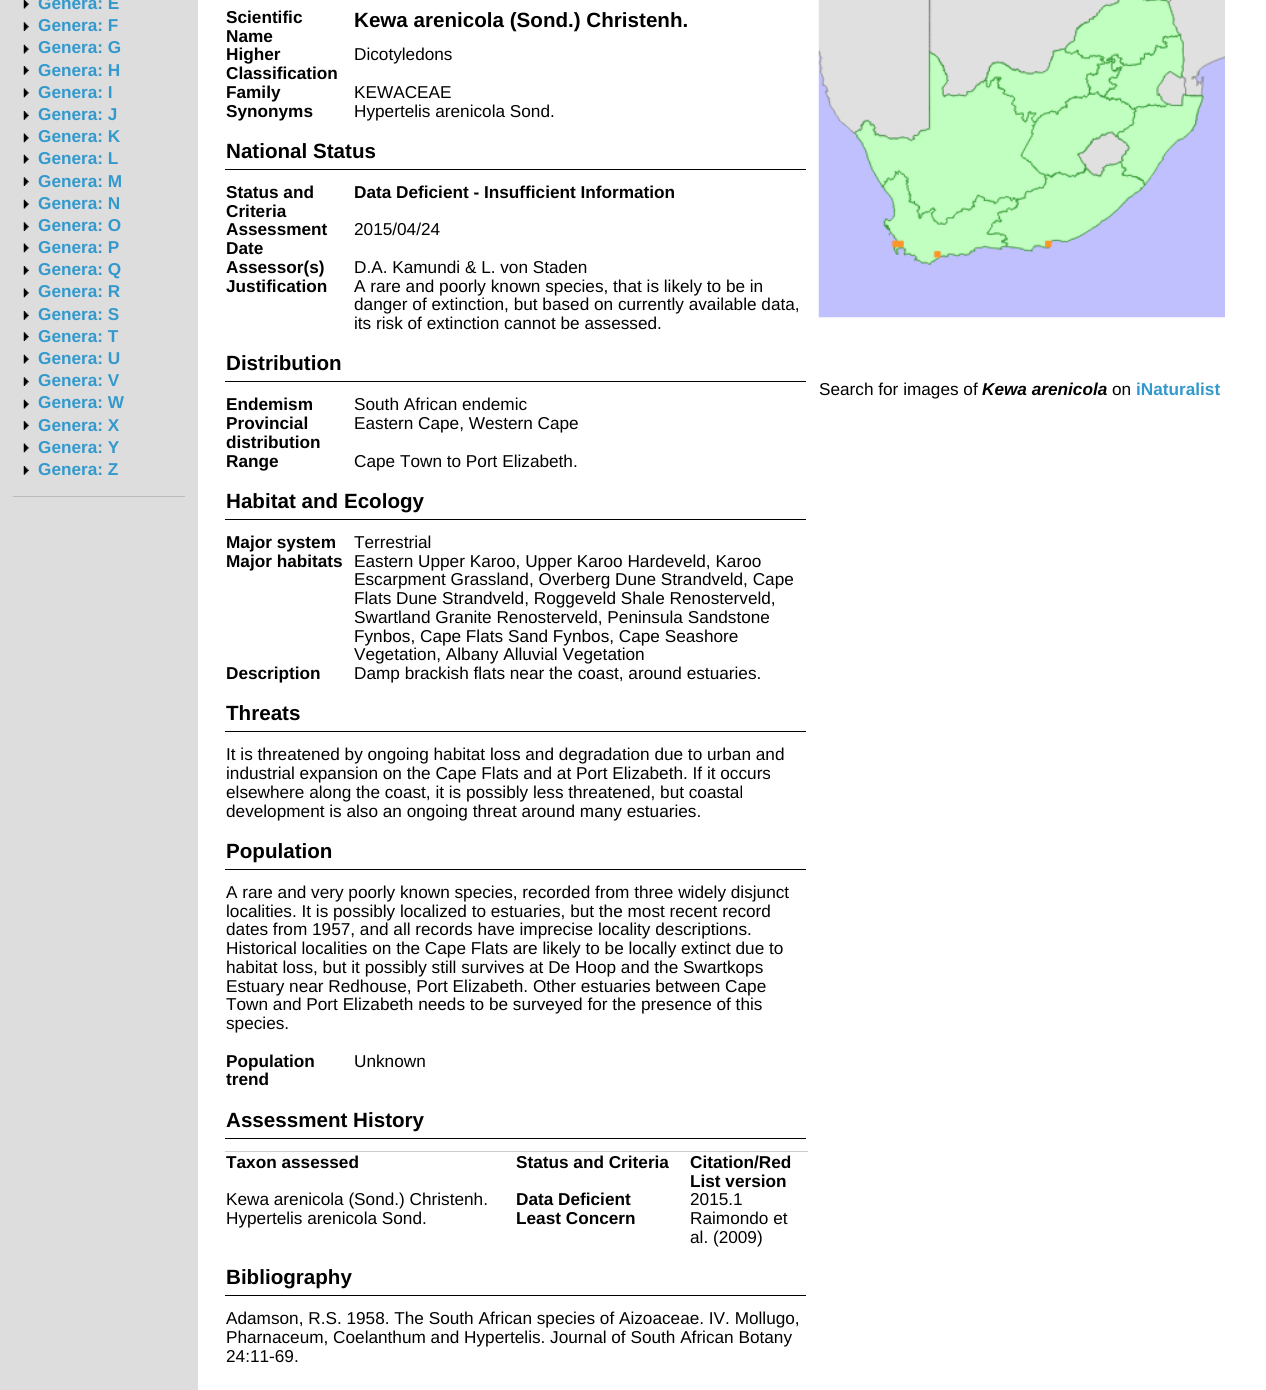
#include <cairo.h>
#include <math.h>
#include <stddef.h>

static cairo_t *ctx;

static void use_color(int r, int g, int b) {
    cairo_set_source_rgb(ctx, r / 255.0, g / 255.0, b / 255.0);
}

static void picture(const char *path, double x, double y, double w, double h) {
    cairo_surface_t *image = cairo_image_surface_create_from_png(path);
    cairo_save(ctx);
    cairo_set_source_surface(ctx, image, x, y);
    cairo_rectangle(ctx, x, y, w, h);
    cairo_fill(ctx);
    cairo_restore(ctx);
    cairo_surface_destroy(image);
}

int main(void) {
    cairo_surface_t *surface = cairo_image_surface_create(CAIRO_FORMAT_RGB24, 1266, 1390);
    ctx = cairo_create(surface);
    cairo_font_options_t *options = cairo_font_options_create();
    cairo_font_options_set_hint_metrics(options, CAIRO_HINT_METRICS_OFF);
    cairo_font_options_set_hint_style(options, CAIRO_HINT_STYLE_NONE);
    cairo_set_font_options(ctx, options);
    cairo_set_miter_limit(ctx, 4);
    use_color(255, 255, 255);
    cairo_paint(ctx);
    use_color(221, 221, 221);
    cairo_rectangle(ctx, 0, 0, 198, 1390);
    cairo_fill(ctx);
    use_color(187, 187, 187);
    cairo_rectangle(ctx, 13, 496, 172, 1);
    cairo_fill(ctx);
    picture("img1.png", 23, 0, 6, 9);
    cairo_select_font_face(ctx, "Liberation Sans", CAIRO_FONT_SLANT_NORMAL, CAIRO_FONT_WEIGHT_BOLD);
    cairo_set_font_size(ctx, 17.2);
    use_color(51, 153, 204);
    cairo_move_to(ctx, 38, 9);
    cairo_show_text(ctx, "Genera: E");
    picture("img2.png", 23, 22, 6, 9);
    cairo_move_to(ctx, 38, 31);
    cairo_show_text(ctx, "Genera: F");
    picture("img3.png", 23, 44, 6, 10);
    cairo_move_to(ctx, 38, 53);
    cairo_show_text(ctx, "Genera: G");
    picture("img4.png", 23, 66, 6, 9);
    cairo_move_to(ctx, 38, 76);
    cairo_show_text(ctx, "Genera: H");
    picture("img5.png", 23, 88, 6, 10);
    cairo_move_to(ctx, 38, 98);
    cairo_show_text(ctx, "Genera: I");
    picture("img4.png", 23, 111, 6, 9);
    cairo_move_to(ctx, 38, 120);
    cairo_show_text(ctx, "Genera: J");
    picture("img5.png", 23, 133, 6, 10);
    cairo_move_to(ctx, 38, 142);
    cairo_show_text(ctx, "Genera: K");
    picture("img3.png", 23, 154, 6, 10);
    cairo_move_to(ctx, 38, 164);
    cairo_show_text(ctx, "Genera: L");
    picture("img2.png", 23, 177, 6, 9);
    cairo_move_to(ctx, 38, 187);
    cairo_show_text(ctx, "Genera: M");
    picture("img3.png", 23, 199, 6, 10);
    cairo_move_to(ctx, 38, 209);
    cairo_show_text(ctx, "Genera: N");
    picture("img2.png", 23, 222, 6, 9);
    cairo_move_to(ctx, 38, 231);
    cairo_show_text(ctx, "Genera: O");
    picture("img5.png", 23, 243, 6, 10);
    cairo_move_to(ctx, 38, 253);
    cairo_show_text(ctx, "Genera: P");
    picture("img4.png", 23, 266, 6, 9);
    cairo_move_to(ctx, 38, 275);
    cairo_show_text(ctx, "Genera: Q");
    picture("img6.png", 23, 288, 6, 10);
    cairo_move_to(ctx, 38, 297);
    cairo_show_text(ctx, "Genera: R");
    picture("img4.png", 23, 311, 6, 9);
    cairo_move_to(ctx, 38, 320);
    cairo_show_text(ctx, "Genera: S");
    picture("img2.png", 23, 332, 6, 9);
    cairo_move_to(ctx, 38, 342);
    cairo_show_text(ctx, "Genera: T");
    picture("img3.png", 23, 354, 6, 10);
    cairo_move_to(ctx, 38, 364);
    cairo_show_text(ctx, "Genera: U");
    picture("img2.png", 23, 377, 6, 9);
    cairo_move_to(ctx, 38, 386);
    cairo_show_text(ctx, "Genera: V");
    picture("img3.png", 23, 399, 6, 10);
    cairo_move_to(ctx, 38, 408);
    cairo_show_text(ctx, "Genera: W");
    picture("img4.png", 23, 421, 6, 9);
    cairo_move_to(ctx, 38, 431);
    cairo_show_text(ctx, "Genera: X");
    picture("img5.png", 23, 443, 6, 10);
    cairo_move_to(ctx, 38, 453);
    cairo_show_text(ctx, "Genera: Y");
    picture("img4.png", 23, 466, 6, 9);
    cairo_move_to(ctx, 38, 475);
    cairo_show_text(ctx, "Genera: Z");
    use_color(0, 0, 0);
    cairo_move_to(ctx, 226, 23);
    cairo_show_text(ctx, "Scientific");
    cairo_move_to(ctx, 226, 42);
    cairo_show_text(ctx, "Name");
    cairo_set_font_size(ctx, 20.6);
    cairo_move_to(ctx, 354, 27);
    cairo_show_text(ctx, "Kewa arenicola (Sond.) Christenh.");
    cairo_set_font_size(ctx, 17.2);
    cairo_move_to(ctx, 226, 60);
    cairo_show_text(ctx, "Higher");
    cairo_move_to(ctx, 226, 79);
    cairo_show_text(ctx, "Classification");
    cairo_select_font_face(ctx, "Liberation Sans", CAIRO_FONT_SLANT_NORMAL, CAIRO_FONT_WEIGHT_NORMAL);
    cairo_move_to(ctx, 354, 60);
    cairo_show_text(ctx, "Dicotyledons");
    cairo_select_font_face(ctx, "Liberation Sans", CAIRO_FONT_SLANT_NORMAL, CAIRO_FONT_WEIGHT_BOLD);
    cairo_move_to(ctx, 226, 98);
    cairo_show_text(ctx, "Family");
    cairo_select_font_face(ctx, "Liberation Sans", CAIRO_FONT_SLANT_NORMAL, CAIRO_FONT_WEIGHT_NORMAL);
    cairo_move_to(ctx, 354, 98);
    cairo_show_text(ctx, "KEWACEAE");
    cairo_select_font_face(ctx, "Liberation Sans", CAIRO_FONT_SLANT_NORMAL, CAIRO_FONT_WEIGHT_BOLD);
    cairo_move_to(ctx, 226, 117);
    cairo_show_text(ctx, "Synonyms");
    cairo_select_font_face(ctx, "Liberation Sans", CAIRO_FONT_SLANT_NORMAL, CAIRO_FONT_WEIGHT_NORMAL);
    cairo_move_to(ctx, 354, 117);
    cairo_show_text(ctx, "Hypertelis arenicola Sond.");
    cairo_rectangle(ctx, 225, 169, 581, 1);
    cairo_fill(ctx);
    cairo_select_font_face(ctx, "Liberation Sans", CAIRO_FONT_SLANT_NORMAL, CAIRO_FONT_WEIGHT_BOLD);
    cairo_set_font_size(ctx, 20.6);
    cairo_move_to(ctx, 226, 158);
    cairo_show_text(ctx, "National Status");
    cairo_set_font_size(ctx, 17.2);
    cairo_move_to(ctx, 226, 198);
    cairo_show_text(ctx, "Status and");
    cairo_move_to(ctx, 226, 217);
    cairo_show_text(ctx, "Criteria");
    cairo_move_to(ctx, 354, 198);
    cairo_show_text(ctx, "Data Deficient - Insufficient Information");
    cairo_move_to(ctx, 226, 235);
    cairo_show_text(ctx, "Assessment");
    cairo_move_to(ctx, 226, 254);
    cairo_show_text(ctx, "Date");
    cairo_select_font_face(ctx, "Liberation Sans", CAIRO_FONT_SLANT_NORMAL, CAIRO_FONT_WEIGHT_NORMAL);
    cairo_move_to(ctx, 354, 235);
    cairo_show_text(ctx, "2015/04/24");
    cairo_select_font_face(ctx, "Liberation Sans", CAIRO_FONT_SLANT_NORMAL, CAIRO_FONT_WEIGHT_BOLD);
    cairo_move_to(ctx, 226, 273);
    cairo_show_text(ctx, "Assessor(s)");
    cairo_select_font_face(ctx, "Liberation Sans", CAIRO_FONT_SLANT_NORMAL, CAIRO_FONT_WEIGHT_NORMAL);
    cairo_move_to(ctx, 354, 273);
    cairo_show_text(ctx, "D.A. Kamundi & L. von Staden");
    cairo_select_font_face(ctx, "Liberation Sans", CAIRO_FONT_SLANT_NORMAL, CAIRO_FONT_WEIGHT_BOLD);
    cairo_move_to(ctx, 226, 292);
    cairo_show_text(ctx, "Justification");
    cairo_select_font_face(ctx, "Liberation Sans", CAIRO_FONT_SLANT_NORMAL, CAIRO_FONT_WEIGHT_NORMAL);
    cairo_move_to(ctx, 354, 292);
    cairo_show_text(ctx, "A rare and poorly known species, that is likely to be in");
    cairo_move_to(ctx, 354, 310);
    cairo_show_text(ctx, "danger of extinction, but based on currently available data,");
    cairo_move_to(ctx, 354, 329);
    cairo_show_text(ctx, "its risk of extinction cannot be assessed.");
    cairo_rectangle(ctx, 225, 381, 581, 1);
    cairo_fill(ctx);
    cairo_select_font_face(ctx, "Liberation Sans", CAIRO_FONT_SLANT_NORMAL, CAIRO_FONT_WEIGHT_BOLD);
    cairo_set_font_size(ctx, 20.6);
    cairo_move_to(ctx, 226, 370);
    cairo_show_text(ctx, "Distribution");
    cairo_set_font_size(ctx, 17.2);
    cairo_move_to(ctx, 226, 410);
    cairo_show_text(ctx, "Endemism");
    cairo_select_font_face(ctx, "Liberation Sans", CAIRO_FONT_SLANT_NORMAL, CAIRO_FONT_WEIGHT_NORMAL);
    cairo_move_to(ctx, 354, 410);
    cairo_show_text(ctx, "South African endemic");
    cairo_select_font_face(ctx, "Liberation Sans", CAIRO_FONT_SLANT_NORMAL, CAIRO_FONT_WEIGHT_BOLD);
    cairo_move_to(ctx, 226, 429);
    cairo_show_text(ctx, "Provincial");
    cairo_move_to(ctx, 226, 448);
    cairo_show_text(ctx, "distribution");
    cairo_select_font_face(ctx, "Liberation Sans", CAIRO_FONT_SLANT_NORMAL, CAIRO_FONT_WEIGHT_NORMAL);
    cairo_move_to(ctx, 354, 429);
    cairo_show_text(ctx, "Eastern Cape, Western Cape");
    cairo_select_font_face(ctx, "Liberation Sans", CAIRO_FONT_SLANT_NORMAL, CAIRO_FONT_WEIGHT_BOLD);
    cairo_move_to(ctx, 226, 467);
    cairo_show_text(ctx, "Range");
    cairo_select_font_face(ctx, "Liberation Sans", CAIRO_FONT_SLANT_NORMAL, CAIRO_FONT_WEIGHT_NORMAL);
    cairo_move_to(ctx, 354, 467);
    cairo_show_text(ctx, "Cape Town to Port Elizabeth.");
    cairo_rectangle(ctx, 225, 519, 581, 1);
    cairo_fill(ctx);
    cairo_select_font_face(ctx, "Liberation Sans", CAIRO_FONT_SLANT_NORMAL, CAIRO_FONT_WEIGHT_BOLD);
    cairo_set_font_size(ctx, 20.6);
    cairo_move_to(ctx, 226, 508);
    cairo_show_text(ctx, "Habitat and Ecology");
    cairo_set_font_size(ctx, 17.2);
    cairo_move_to(ctx, 226, 548);
    cairo_show_text(ctx, "Major system");
    cairo_select_font_face(ctx, "Liberation Sans", CAIRO_FONT_SLANT_NORMAL, CAIRO_FONT_WEIGHT_NORMAL);
    cairo_move_to(ctx, 354, 548);
    cairo_show_text(ctx, "Terrestrial");
    cairo_select_font_face(ctx, "Liberation Sans", CAIRO_FONT_SLANT_NORMAL, CAIRO_FONT_WEIGHT_BOLD);
    cairo_move_to(ctx, 226, 567);
    cairo_show_text(ctx, "Major habitats");
    cairo_select_font_face(ctx, "Liberation Sans", CAIRO_FONT_SLANT_NORMAL, CAIRO_FONT_WEIGHT_NORMAL);
    cairo_move_to(ctx, 354, 567);
    cairo_show_text(ctx, "Eastern Upper Karoo, Upper Karoo Hardeveld, Karoo");
    cairo_move_to(ctx, 354, 585);
    cairo_show_text(ctx, "Escarpment Grassland, Overberg Dune Strandveld, Cape");
    cairo_move_to(ctx, 354, 604);
    cairo_show_text(ctx, "Flats Dune Strandveld, Roggeveld Shale Renosterveld,");
    cairo_move_to(ctx, 354, 623);
    cairo_show_text(ctx, "Swartland Granite Renosterveld, Peninsula Sandstone");
    cairo_move_to(ctx, 354, 642);
    cairo_show_text(ctx, "Fynbos, Cape Flats Sand Fynbos, Cape Seashore");
    cairo_move_to(ctx, 354, 660);
    cairo_show_text(ctx, "Vegetation, Albany Alluvial Vegetation");
    cairo_select_font_face(ctx, "Liberation Sans", CAIRO_FONT_SLANT_NORMAL, CAIRO_FONT_WEIGHT_BOLD);
    cairo_move_to(ctx, 226, 679);
    cairo_show_text(ctx, "Description");
    cairo_select_font_face(ctx, "Liberation Sans", CAIRO_FONT_SLANT_NORMAL, CAIRO_FONT_WEIGHT_NORMAL);
    cairo_move_to(ctx, 354, 679);
    cairo_show_text(ctx, "Damp brackish flats near the coast, around estuaries.");
    cairo_rectangle(ctx, 225, 731, 581, 1);
    cairo_fill(ctx);
    cairo_select_font_face(ctx, "Liberation Sans", CAIRO_FONT_SLANT_NORMAL, CAIRO_FONT_WEIGHT_BOLD);
    cairo_set_font_size(ctx, 20.6);
    cairo_move_to(ctx, 226, 720);
    cairo_show_text(ctx, "Threats");
    cairo_select_font_face(ctx, "Liberation Sans", CAIRO_FONT_SLANT_NORMAL, CAIRO_FONT_WEIGHT_NORMAL);
    cairo_set_font_size(ctx, 17.2);
    cairo_move_to(ctx, 226, 760);
    cairo_show_text(ctx, "It is threatened by ongoing habitat loss and degradation due to urban and");
    cairo_move_to(ctx, 226, 779);
    cairo_show_text(ctx, "industrial expansion on the Cape Flats and at Port Elizabeth. If it occurs");
    cairo_move_to(ctx, 226, 798);
    cairo_show_text(ctx, "elsewhere along the coast, it is possibly less threatened, but coastal");
    cairo_move_to(ctx, 226, 817);
    cairo_show_text(ctx, "development is also an ongoing threat around many estuaries.");
    cairo_rectangle(ctx, 225, 869, 581, 1);
    cairo_fill(ctx);
    cairo_select_font_face(ctx, "Liberation Sans", CAIRO_FONT_SLANT_NORMAL, CAIRO_FONT_WEIGHT_BOLD);
    cairo_set_font_size(ctx, 20.6);
    cairo_move_to(ctx, 226, 858);
    cairo_show_text(ctx, "Population");
    cairo_select_font_face(ctx, "Liberation Sans", CAIRO_FONT_SLANT_NORMAL, CAIRO_FONT_WEIGHT_NORMAL);
    cairo_set_font_size(ctx, 17.2);
    cairo_move_to(ctx, 226, 898);
    cairo_show_text(ctx, "A rare and very poorly known species, recorded from three widely disjunct");
    cairo_move_to(ctx, 226, 917);
    cairo_show_text(ctx, "localities. It is possibly localized to estuaries, but the most recent record");
    cairo_move_to(ctx, 226, 935);
    cairo_show_text(ctx, "dates from 1957, and all records have imprecise locality descriptions.");
    cairo_move_to(ctx, 226, 954);
    cairo_show_text(ctx, "Historical localities on the Cape Flats are likely to be locally extinct due to");
    cairo_move_to(ctx, 226, 973);
    cairo_show_text(ctx, "habitat loss, but it possibly still survives at De Hoop and the Swartkops");
    cairo_move_to(ctx, 226, 992);
    cairo_show_text(ctx, "Estuary near Redhouse, Port Elizabeth. Other estuaries between Cape");
    cairo_move_to(ctx, 226, 1010);
    cairo_show_text(ctx, "Town and Port Elizabeth needs to be surveyed for the presence of this");
    cairo_move_to(ctx, 226, 1029);
    cairo_show_text(ctx, "species.");
    cairo_select_font_face(ctx, "Liberation Sans", CAIRO_FONT_SLANT_NORMAL, CAIRO_FONT_WEIGHT_BOLD);
    cairo_move_to(ctx, 226, 1067);
    cairo_show_text(ctx, "Population");
    cairo_move_to(ctx, 226, 1085);
    cairo_show_text(ctx, "trend");
    cairo_select_font_face(ctx, "Liberation Sans", CAIRO_FONT_SLANT_NORMAL, CAIRO_FONT_WEIGHT_NORMAL);
    cairo_move_to(ctx, 354, 1067);
    cairo_show_text(ctx, "Unknown");
    cairo_rectangle(ctx, 225, 1138, 581, 1);
    cairo_fill(ctx);
    cairo_select_font_face(ctx, "Liberation Sans", CAIRO_FONT_SLANT_NORMAL, CAIRO_FONT_WEIGHT_BOLD);
    cairo_set_font_size(ctx, 20.6);
    cairo_move_to(ctx, 226, 1127);
    cairo_show_text(ctx, "Assessment History");
    use_color(204, 204, 204);
    cairo_rectangle(ctx, 225, 1151, 583, 1);
    cairo_fill(ctx);
    cairo_set_font_size(ctx, 17.2);
    use_color(0, 0, 0);
    cairo_move_to(ctx, 226, 1168);
    cairo_show_text(ctx, "Taxon assessed");
    cairo_move_to(ctx, 516, 1168);
    cairo_show_text(ctx, "Status and Criteria");
    cairo_move_to(ctx, 690, 1168);
    cairo_show_text(ctx, "Citation/Red");
    cairo_move_to(ctx, 690, 1187);
    cairo_show_text(ctx, "List version");
    cairo_select_font_face(ctx, "Liberation Sans", CAIRO_FONT_SLANT_NORMAL, CAIRO_FONT_WEIGHT_NORMAL);
    cairo_move_to(ctx, 226, 1205);
    cairo_show_text(ctx, "Kewa arenicola (Sond.) Christenh.");
    cairo_select_font_face(ctx, "Liberation Sans", CAIRO_FONT_SLANT_NORMAL, CAIRO_FONT_WEIGHT_BOLD);
    cairo_move_to(ctx, 516, 1205);
    cairo_show_text(ctx, "Data Deficient");
    cairo_select_font_face(ctx, "Liberation Sans", CAIRO_FONT_SLANT_NORMAL, CAIRO_FONT_WEIGHT_NORMAL);
    cairo_move_to(ctx, 690, 1205);
    cairo_show_text(ctx, "2015.1");
    cairo_move_to(ctx, 226, 1224);
    cairo_show_text(ctx, "Hypertelis arenicola Sond.");
    cairo_select_font_face(ctx, "Liberation Sans", CAIRO_FONT_SLANT_NORMAL, CAIRO_FONT_WEIGHT_BOLD);
    cairo_move_to(ctx, 516, 1224);
    cairo_show_text(ctx, "Least Concern");
    cairo_select_font_face(ctx, "Liberation Sans", CAIRO_FONT_SLANT_NORMAL, CAIRO_FONT_WEIGHT_NORMAL);
    cairo_move_to(ctx, 690, 1224);
    cairo_show_text(ctx, "Raimondo et");
    cairo_move_to(ctx, 690, 1243);
    cairo_show_text(ctx, "al. (2009)");
    cairo_rectangle(ctx, 225, 1295, 581, 1);
    cairo_fill(ctx);
    cairo_select_font_face(ctx, "Liberation Sans", CAIRO_FONT_SLANT_NORMAL, CAIRO_FONT_WEIGHT_BOLD);
    cairo_set_font_size(ctx, 20.6);
    cairo_move_to(ctx, 226, 1284);
    cairo_show_text(ctx, "Bibliography");
    cairo_select_font_face(ctx, "Liberation Sans", CAIRO_FONT_SLANT_NORMAL, CAIRO_FONT_WEIGHT_NORMAL);
    cairo_set_font_size(ctx, 17.2);
    cairo_move_to(ctx, 226, 1324);
    cairo_show_text(ctx, "Adamson, R.S. 1958. The South African species of Aizoaceae. IV. Mollugo,");
    cairo_move_to(ctx, 226, 1343);
    cairo_show_text(ctx, "Pharnaceum, Coelanthum and Hypertelis. Journal of South African Botany");
    cairo_move_to(ctx, 226, 1362);
    cairo_show_text(ctx, "24:11-69.");
    picture("img7.png", 818, 0, 407, 318);
    cairo_move_to(ctx, 819, 395);
    cairo_show_text(ctx, "Search for images of");
    cairo_select_font_face(ctx, "Liberation Sans", CAIRO_FONT_SLANT_ITALIC, CAIRO_FONT_WEIGHT_BOLD);
    cairo_move_to(ctx, 982, 395);
    cairo_show_text(ctx, "Kewa arenicola");
    cairo_select_font_face(ctx, "Liberation Sans", CAIRO_FONT_SLANT_NORMAL, CAIRO_FONT_WEIGHT_NORMAL);
    cairo_move_to(ctx, 1112, 395);
    cairo_show_text(ctx, "on");
    cairo_select_font_face(ctx, "Liberation Sans", CAIRO_FONT_SLANT_NORMAL, CAIRO_FONT_WEIGHT_BOLD);
    use_color(51, 153, 204);
    cairo_move_to(ctx, 1136, 395);
    cairo_show_text(ctx, "iNaturalist");
    cairo_surface_write_to_png(surface, "result.png");
    cairo_font_options_destroy(options);
    cairo_destroy(ctx);
    cairo_surface_destroy(surface);
    return 0;
}
